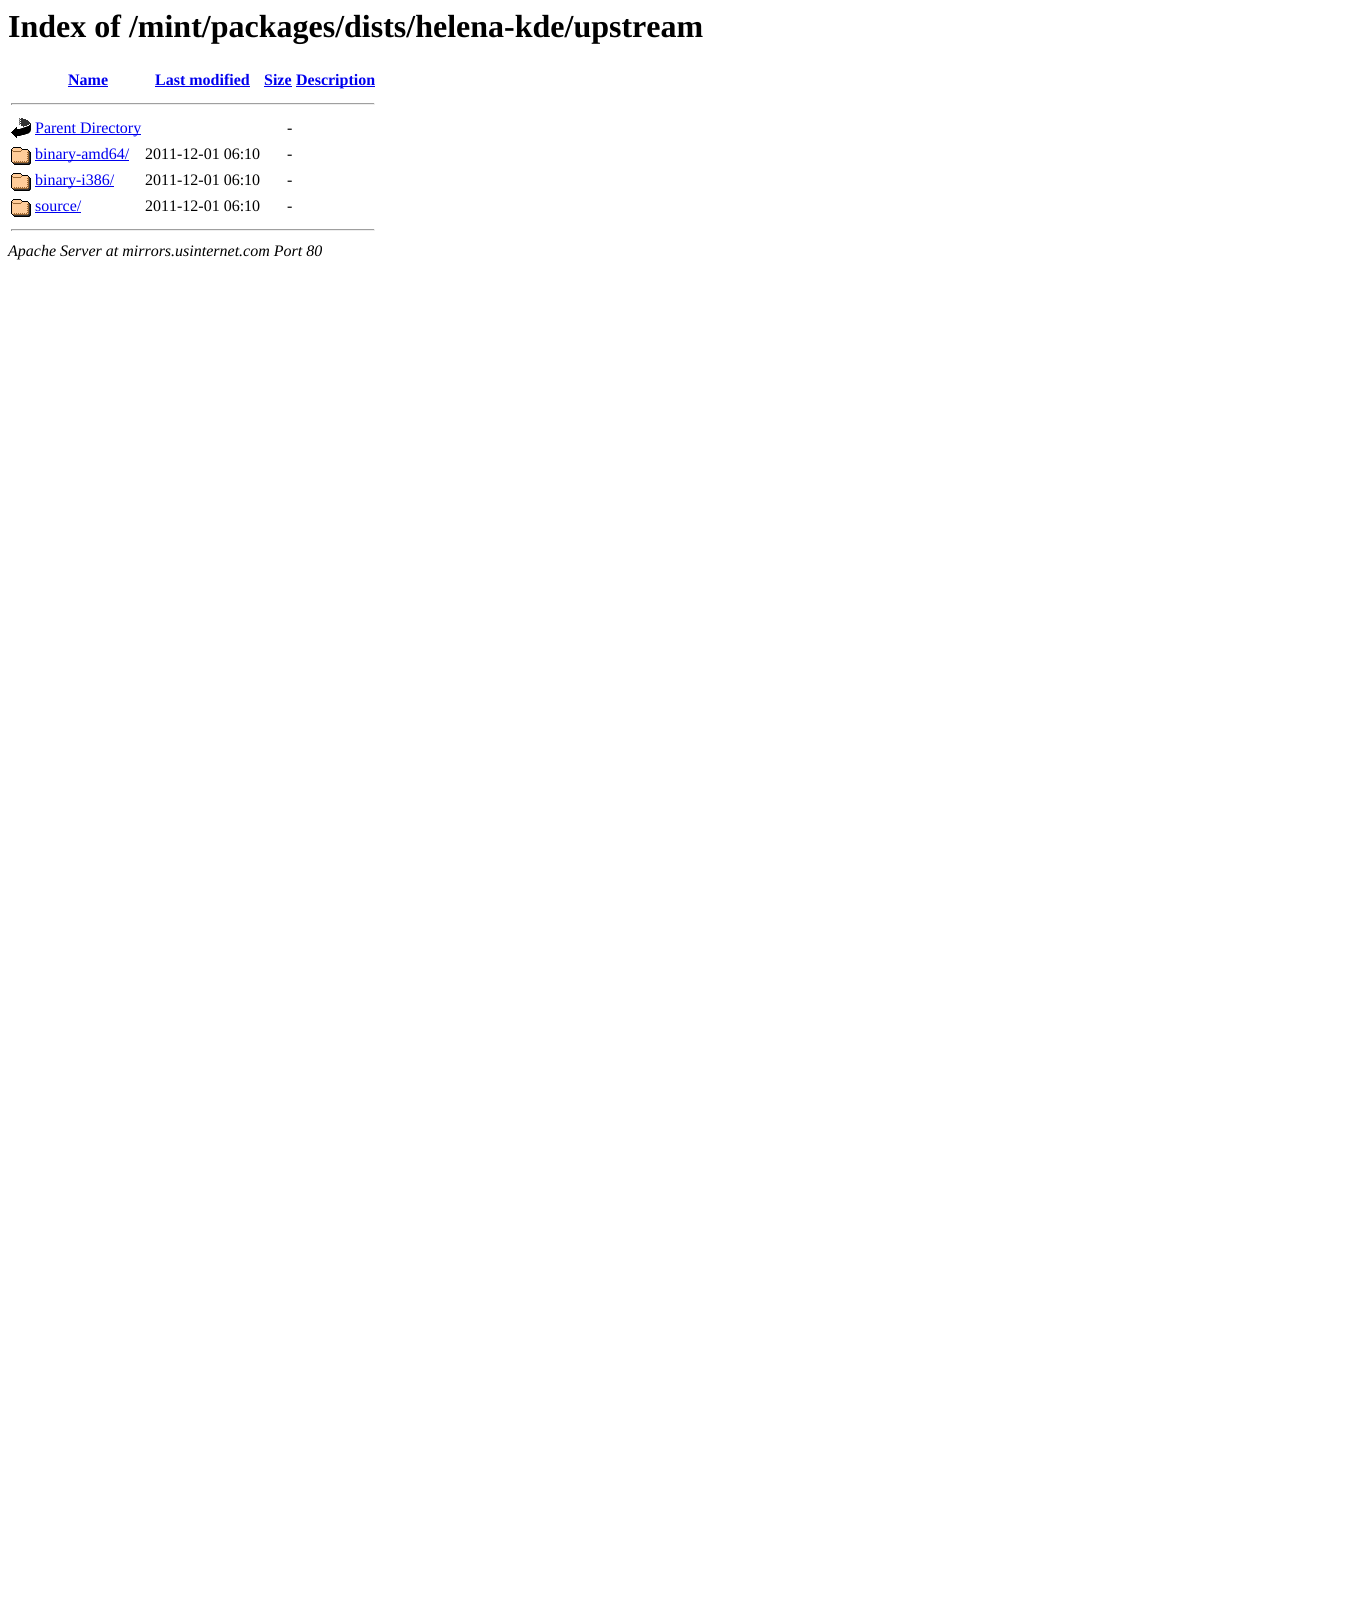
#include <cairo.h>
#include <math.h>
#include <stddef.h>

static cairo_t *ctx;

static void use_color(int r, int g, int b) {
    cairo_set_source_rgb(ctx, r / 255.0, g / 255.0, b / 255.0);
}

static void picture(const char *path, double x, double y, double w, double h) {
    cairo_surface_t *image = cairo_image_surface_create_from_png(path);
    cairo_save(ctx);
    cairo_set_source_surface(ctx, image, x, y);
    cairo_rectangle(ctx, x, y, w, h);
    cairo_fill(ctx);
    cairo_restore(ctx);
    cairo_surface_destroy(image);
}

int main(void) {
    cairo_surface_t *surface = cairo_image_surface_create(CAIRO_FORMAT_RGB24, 1350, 1611);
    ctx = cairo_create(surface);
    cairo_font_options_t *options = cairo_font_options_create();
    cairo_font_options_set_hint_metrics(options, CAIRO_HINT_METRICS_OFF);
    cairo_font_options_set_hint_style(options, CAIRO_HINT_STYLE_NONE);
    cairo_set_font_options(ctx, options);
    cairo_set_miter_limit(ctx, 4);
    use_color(255, 255, 255);
    cairo_paint(ctx);
    cairo_select_font_face(ctx, "Liberation Serif", CAIRO_FONT_SLANT_NORMAL, CAIRO_FONT_WEIGHT_BOLD);
    cairo_set_font_size(ctx, 32);
    use_color(0, 0, 0);
    cairo_move_to(ctx, 8, 37);
    cairo_show_text(ctx, "Index of /mint/packages/dists/helena-kde/upstream");
    cairo_set_font_size(ctx, 16);
    use_color(0, 0, 238);
    cairo_move_to(ctx, 68, 85);
    cairo_show_text(ctx, "Name");
    cairo_rectangle(ctx, 68, 86, 40, 1);
    cairo_fill(ctx);
    cairo_move_to(ctx, 155, 85);
    cairo_show_text(ctx, "Last modified");
    cairo_rectangle(ctx, 155, 86, 95, 1);
    cairo_fill(ctx);
    cairo_move_to(ctx, 264, 85);
    cairo_show_text(ctx, "Size");
    cairo_rectangle(ctx, 264, 86, 28, 1);
    cairo_fill(ctx);
    cairo_rectangle(ctx, 296, 86, 79, 1);
    cairo_fill(ctx);
    cairo_move_to(ctx, 296, 85);
    cairo_show_text(ctx, "Description");
    use_color(159, 159, 159);
    cairo_rectangle(ctx, 11, 103, 364, 1);
    cairo_fill(ctx);
    use_color(238, 238, 238);
    cairo_rectangle(ctx, 374, 103, 1, 2);
    cairo_fill(ctx);
    cairo_rectangle(ctx, 11, 104, 364, 1);
    cairo_fill(ctx);
    use_color(159, 159, 159);
    cairo_rectangle(ctx, 11, 103, 1, 2);
    cairo_fill(ctx);
    picture("img1.png", 11, 118, 20, 20);
    use_color(0, 0, 238);
    cairo_rectangle(ctx, 35, 134, 106, 1);
    cairo_fill(ctx);
    cairo_select_font_face(ctx, "Liberation Serif", CAIRO_FONT_SLANT_NORMAL, CAIRO_FONT_WEIGHT_NORMAL);
    cairo_move_to(ctx, 35, 133);
    cairo_show_text(ctx, "Parent Directory");
    use_color(0, 0, 0);
    cairo_move_to(ctx, 287, 133);
    cairo_show_text(ctx, "-");
    picture("img2.png", 11, 147, 20, 18);
    use_color(0, 0, 238);
    cairo_rectangle(ctx, 35, 160, 94, 1);
    cairo_fill(ctx);
    cairo_move_to(ctx, 35, 159);
    cairo_show_text(ctx, "binary-amd64/");
    use_color(0, 0, 0);
    cairo_move_to(ctx, 145, 159);
    cairo_show_text(ctx, "2011-12-01 06:10");
    cairo_move_to(ctx, 287, 159);
    cairo_show_text(ctx, "-");
    picture("img2.png", 11, 173, 20, 18);
    use_color(0, 0, 238);
    cairo_rectangle(ctx, 35, 186, 79, 1);
    cairo_fill(ctx);
    cairo_move_to(ctx, 35, 185);
    cairo_show_text(ctx, "binary-i386/");
    use_color(0, 0, 0);
    cairo_move_to(ctx, 145, 185);
    cairo_show_text(ctx, "2011-12-01 06:10");
    cairo_move_to(ctx, 287, 185);
    cairo_show_text(ctx, "-");
    picture("img2.png", 11, 199, 20, 18);
    use_color(0, 0, 238);
    cairo_move_to(ctx, 35, 211);
    cairo_show_text(ctx, "source/");
    cairo_rectangle(ctx, 35, 212, 46, 1);
    cairo_fill(ctx);
    use_color(0, 0, 0);
    cairo_move_to(ctx, 145, 211);
    cairo_show_text(ctx, "2011-12-01 06:10");
    cairo_move_to(ctx, 287, 211);
    cairo_show_text(ctx, "-");
    use_color(159, 159, 159);
    cairo_rectangle(ctx, 11, 229, 364, 1);
    cairo_fill(ctx);
    use_color(238, 238, 238);
    cairo_rectangle(ctx, 374, 229, 1, 2);
    cairo_fill(ctx);
    cairo_rectangle(ctx, 11, 230, 364, 1);
    cairo_fill(ctx);
    use_color(159, 159, 159);
    cairo_rectangle(ctx, 11, 229, 1, 2);
    cairo_fill(ctx);
    cairo_select_font_face(ctx, "Liberation Serif", CAIRO_FONT_SLANT_ITALIC, CAIRO_FONT_WEIGHT_NORMAL);
    use_color(0, 0, 0);
    cairo_move_to(ctx, 8, 256);
    cairo_show_text(ctx, "Apache Server at mirrors.usinternet.com Port 80");
    cairo_surface_write_to_png(surface, "result.png");
    cairo_font_options_destroy(options);
    cairo_destroy(ctx);
    cairo_surface_destroy(surface);
    return 0;
}
